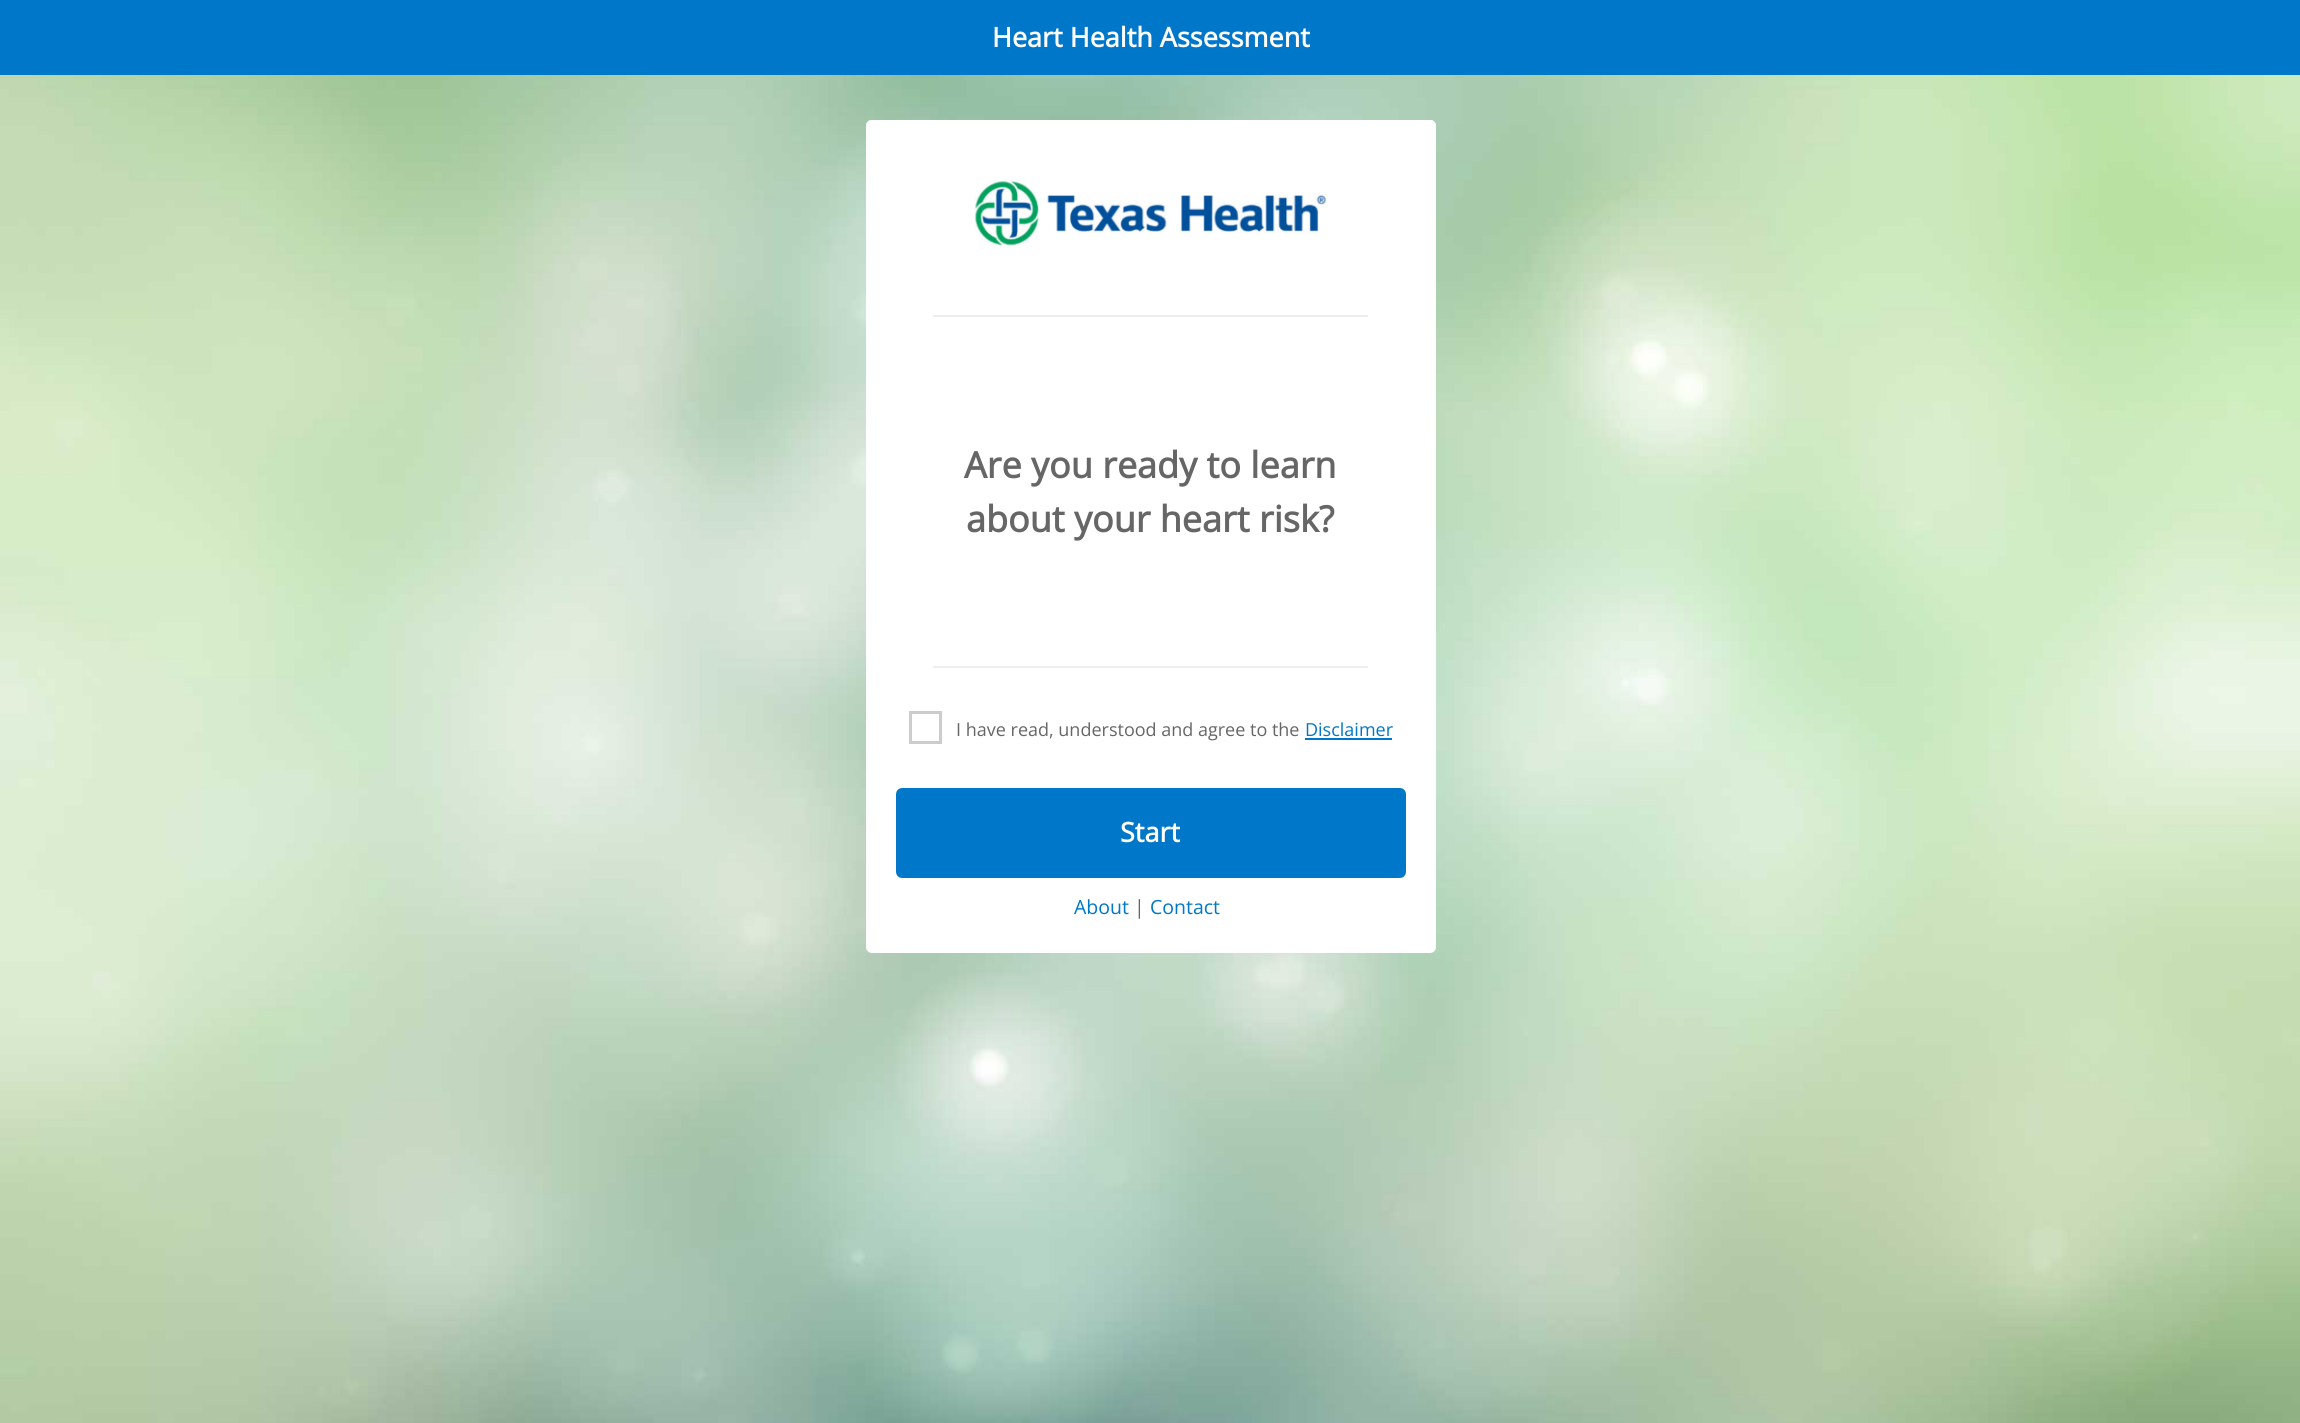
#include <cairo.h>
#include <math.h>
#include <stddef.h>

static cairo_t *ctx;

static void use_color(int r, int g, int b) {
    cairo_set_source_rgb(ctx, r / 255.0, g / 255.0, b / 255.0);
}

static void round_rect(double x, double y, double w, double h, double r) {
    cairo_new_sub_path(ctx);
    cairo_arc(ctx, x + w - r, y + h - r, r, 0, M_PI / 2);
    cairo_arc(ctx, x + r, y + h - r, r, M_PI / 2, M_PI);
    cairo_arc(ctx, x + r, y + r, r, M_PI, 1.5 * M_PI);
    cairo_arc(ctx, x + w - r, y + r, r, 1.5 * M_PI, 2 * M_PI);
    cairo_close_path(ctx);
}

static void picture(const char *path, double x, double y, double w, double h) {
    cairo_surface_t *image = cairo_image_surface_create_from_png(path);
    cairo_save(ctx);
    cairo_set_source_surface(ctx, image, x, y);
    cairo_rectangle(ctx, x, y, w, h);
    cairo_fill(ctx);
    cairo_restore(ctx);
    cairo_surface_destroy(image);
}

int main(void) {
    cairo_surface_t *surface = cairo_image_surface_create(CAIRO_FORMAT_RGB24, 2300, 1423);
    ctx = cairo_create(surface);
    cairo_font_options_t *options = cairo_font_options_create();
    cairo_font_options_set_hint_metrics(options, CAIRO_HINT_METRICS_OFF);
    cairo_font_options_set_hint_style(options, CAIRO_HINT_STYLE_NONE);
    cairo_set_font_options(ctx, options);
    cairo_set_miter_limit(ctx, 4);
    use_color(255, 255, 255);
    cairo_paint(ctx);
    picture("img1.png", 0, 75, 2300, 1348);
    use_color(0, 119, 200);
    cairo_rectangle(ctx, 0, 0, 2300, 75);
    cairo_fill(ctx);
    cairo_select_font_face(ctx, "Open Sans", CAIRO_FONT_SLANT_NORMAL, CAIRO_FONT_WEIGHT_BOLD);
    cairo_set_font_size(ctx, 27);
    use_color(255, 255, 255);
    cairo_move_to(ctx, 992, 47);
    cairo_show_text(ctx, "Heart Health Assessment");
    round_rect(866, 120, 570, 833, 6);
    cairo_fill(ctx);
    cairo_new_path(ctx);
    cairo_move_to(ctx, 872, 120);
    cairo_line_to(ctx, 1430, 120);
    cairo_curve_to(ctx, 1433.5, 120, 1436, 122.5, 1436, 126);
    cairo_line_to(ctx, 1436, 315);
    cairo_line_to(ctx, 866, 315);
    cairo_line_to(ctx, 866, 126);
    cairo_curve_to(ctx, 866, 122.5, 868.5, 120, 872, 120);
    cairo_close_path(ctx);
    cairo_fill(ctx);
    picture("img2.png", 974, 179, 353, 67);
    use_color(238, 237, 235);
    cairo_rectangle(ctx, 933, 315, 435, 2);
    cairo_fill(ctx);
    cairo_rectangle(ctx, 933, 666, 435, 2);
    cairo_fill(ctx);
    cairo_set_font_size(ctx, 36);
    use_color(102, 102, 102);
    cairo_move_to(ctx, 964, 478);
    cairo_show_text(ctx, "Are you ready to learn");
    cairo_move_to(ctx, 966, 532);
    cairo_show_text(ctx, "about your heart risk?");
    cairo_rectangle(ctx, 910.5, 712.5, 30, 30);
    use_color(204, 204, 204);
    cairo_set_line_width(ctx, 3);
    cairo_stroke(ctx);
    cairo_select_font_face(ctx, "Open Sans", CAIRO_FONT_SLANT_NORMAL, CAIRO_FONT_WEIGHT_NORMAL);
    cairo_set_font_size(ctx, 18);
    use_color(102, 102, 102);
    cairo_move_to(ctx, 956, 736);
    cairo_show_text(ctx, "I have read, understood and agree to the");
    use_color(0, 119, 200);
    cairo_move_to(ctx, 1305, 736);
    cairo_show_text(ctx, "Disclaimer");
    cairo_rectangle(ctx, 1305, 738, 87, 2);
    cairo_fill(ctx);
    round_rect(899, 791, 504, 84, 3);
    cairo_fill_preserve(ctx);
    cairo_set_line_width(ctx, 6);
    cairo_stroke(ctx);
    cairo_select_font_face(ctx, "Open Sans", CAIRO_FONT_SLANT_NORMAL, CAIRO_FONT_WEIGHT_BOLD);
    cairo_set_font_size(ctx, 27);
    use_color(255, 255, 255);
    cairo_move_to(ctx, 1120, 842);
    cairo_show_text(ctx, "Start");
    cairo_select_font_face(ctx, "Open Sans", CAIRO_FONT_SLANT_NORMAL, CAIRO_FONT_WEIGHT_NORMAL);
    cairo_set_font_size(ctx, 19.5);
    use_color(0, 119, 200);
    cairo_move_to(ctx, 1074, 914);
    cairo_show_text(ctx, "About");
    use_color(102, 102, 102);
    cairo_move_to(ctx, 1134, 914);
    cairo_show_text(ctx, "|");
    use_color(0, 119, 200);
    cairo_move_to(ctx, 1150, 914);
    cairo_show_text(ctx, "Contact");
    cairo_surface_write_to_png(surface, "result.png");
    cairo_font_options_destroy(options);
    cairo_destroy(ctx);
    cairo_surface_destroy(surface);
    return 0;
}
